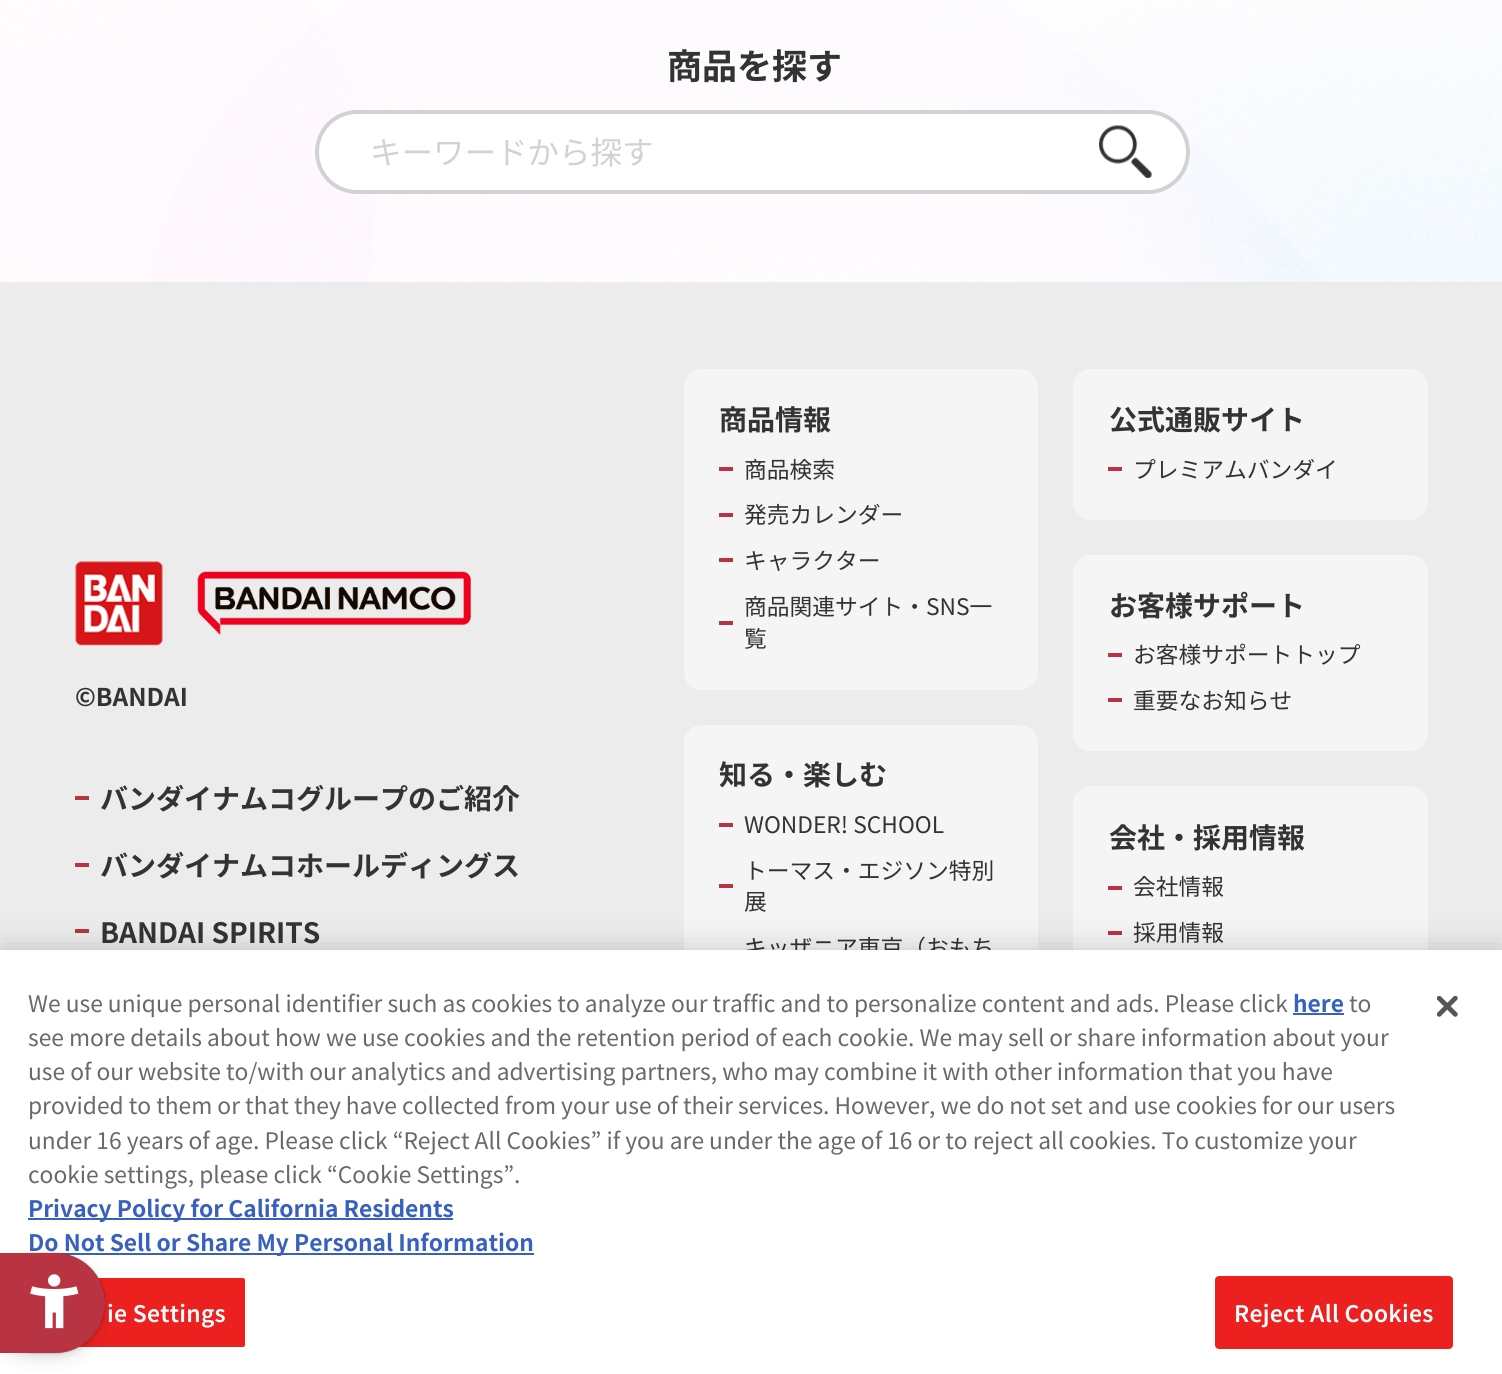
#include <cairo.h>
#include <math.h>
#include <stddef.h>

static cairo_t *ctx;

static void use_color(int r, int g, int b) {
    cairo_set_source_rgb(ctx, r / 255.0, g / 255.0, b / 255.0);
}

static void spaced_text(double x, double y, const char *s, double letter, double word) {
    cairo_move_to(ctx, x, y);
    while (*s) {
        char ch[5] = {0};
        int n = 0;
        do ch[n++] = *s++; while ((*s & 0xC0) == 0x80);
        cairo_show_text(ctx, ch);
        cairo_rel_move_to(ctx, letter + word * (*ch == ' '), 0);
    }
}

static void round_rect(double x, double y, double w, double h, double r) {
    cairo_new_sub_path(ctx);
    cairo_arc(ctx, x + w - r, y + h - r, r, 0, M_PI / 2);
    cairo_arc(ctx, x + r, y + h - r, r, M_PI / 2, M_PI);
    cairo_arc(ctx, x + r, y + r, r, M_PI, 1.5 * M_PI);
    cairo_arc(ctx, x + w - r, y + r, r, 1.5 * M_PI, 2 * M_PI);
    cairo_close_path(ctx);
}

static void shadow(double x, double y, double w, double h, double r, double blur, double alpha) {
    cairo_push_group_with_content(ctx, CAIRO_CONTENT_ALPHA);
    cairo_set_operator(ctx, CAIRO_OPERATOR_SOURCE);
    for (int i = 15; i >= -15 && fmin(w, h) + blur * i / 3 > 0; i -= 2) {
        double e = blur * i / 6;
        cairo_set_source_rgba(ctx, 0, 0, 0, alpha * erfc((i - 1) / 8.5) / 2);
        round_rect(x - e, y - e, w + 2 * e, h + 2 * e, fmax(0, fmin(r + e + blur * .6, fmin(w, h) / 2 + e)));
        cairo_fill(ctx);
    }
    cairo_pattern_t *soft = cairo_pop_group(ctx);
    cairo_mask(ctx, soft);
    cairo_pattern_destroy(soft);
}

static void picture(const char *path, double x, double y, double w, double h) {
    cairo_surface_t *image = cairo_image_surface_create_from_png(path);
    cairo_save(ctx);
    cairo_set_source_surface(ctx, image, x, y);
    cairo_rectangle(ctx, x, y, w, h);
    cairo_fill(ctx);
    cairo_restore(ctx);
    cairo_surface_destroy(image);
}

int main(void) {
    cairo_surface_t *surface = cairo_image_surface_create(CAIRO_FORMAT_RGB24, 1502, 1374);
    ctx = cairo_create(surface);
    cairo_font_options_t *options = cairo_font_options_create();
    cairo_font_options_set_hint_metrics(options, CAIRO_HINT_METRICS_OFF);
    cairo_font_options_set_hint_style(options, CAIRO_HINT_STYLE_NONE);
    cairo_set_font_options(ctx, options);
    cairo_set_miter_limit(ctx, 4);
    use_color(255, 255, 255);
    cairo_paint(ctx);
    picture("img1.png", 0, 0, 1502, 282);
    cairo_set_source_rgba(ctx, 1, 1, 1, 0.7);
    cairo_rectangle(ctx, 0, 0, 1502, 282);
    cairo_fill(ctx);
    cairo_select_font_face(ctx, "Noto Sans JP", CAIRO_FONT_SLANT_NORMAL, CAIRO_FONT_WEIGHT_BOLD);
    cairo_set_font_size(ctx, 35);
    use_color(51, 51, 51);
    cairo_move_to(ctx, 667, 79);
    cairo_show_text(ctx, "商品を探す");
    use_color(255, 255, 255);
    round_rect(317, 112, 871, 80, 40);
    cairo_fill_preserve(ctx);
    use_color(210, 210, 210);
    cairo_set_line_width(ctx, 4);
    cairo_stroke(ctx);
    cairo_select_font_face(ctx, "Noto Sans JP", CAIRO_FONT_SLANT_NORMAL, CAIRO_FONT_WEIGHT_NORMAL);
    cairo_set_font_size(ctx, 31.5);
    cairo_move_to(ctx, 370, 164);
    cairo_show_text(ctx, "キーワードから探す");
    picture("img2.png", 1099, 125, 53, 53);
    use_color(236, 236, 236);
    cairo_rectangle(ctx, 0, 282, 1502, 668);
    cairo_fill(ctx);
    picture("img3.png", 75, 561, 88, 85);
    picture("img4.png", 197, 571, 274, 64);
    cairo_select_font_face(ctx, "Noto Sans JP", CAIRO_FONT_SLANT_NORMAL, CAIRO_FONT_WEIGHT_BOLD);
    cairo_set_font_size(ctx, 24.5);
    use_color(51, 51, 51);
    cairo_move_to(ctx, 75, 706);
    cairo_show_text(ctx, "©BANDAI");
    use_color(185, 52, 66);
    cairo_rectangle(ctx, 75, 796, 14, 4);
    cairo_fill(ctx);
    cairo_set_font_size(ctx, 28);
    use_color(51, 51, 51);
    cairo_move_to(ctx, 100, 809);
    cairo_show_text(ctx, "バンダイナムコグループのご紹介");
    use_color(185, 52, 66);
    cairo_rectangle(ctx, 75, 863, 14, 4);
    cairo_fill(ctx);
    use_color(51, 51, 51);
    cairo_move_to(ctx, 100, 876);
    cairo_show_text(ctx, "バンダイナムコホールディングス");
    use_color(185, 52, 66);
    cairo_rectangle(ctx, 75, 929, 14, 4);
    cairo_fill(ctx);
    use_color(51, 51, 51);
    cairo_move_to(ctx, 100, 943);
    cairo_show_text(ctx, "BANDAI SPIRITS");
    use_color(245, 245, 245);
    round_rect(684, 369, 354, 321, 18);
    cairo_fill(ctx);
    use_color(51, 51, 51);
    cairo_move_to(ctx, 719, 430);
    cairo_show_text(ctx, "商品情報");
    use_color(185, 52, 66);
    cairo_rectangle(ctx, 719, 467, 14, 4);
    cairo_fill(ctx);
    cairo_select_font_face(ctx, "Noto Sans JP", CAIRO_FONT_SLANT_NORMAL, CAIRO_FONT_WEIGHT_NORMAL);
    cairo_set_font_size(ctx, 22.75);
    use_color(51, 51, 51);
    cairo_move_to(ctx, 744, 478);
    cairo_show_text(ctx, "商品検索");
    use_color(185, 52, 66);
    cairo_rectangle(ctx, 719, 513, 14, 4);
    cairo_fill(ctx);
    use_color(51, 51, 51);
    cairo_move_to(ctx, 744, 523);
    cairo_show_text(ctx, "発売カレンダー");
    use_color(185, 52, 66);
    cairo_rectangle(ctx, 719, 558, 14, 4);
    cairo_fill(ctx);
    use_color(51, 51, 51);
    cairo_move_to(ctx, 744, 569);
    cairo_show_text(ctx, "キャラクター");
    use_color(185, 52, 66);
    cairo_rectangle(ctx, 719, 621, 14, 4);
    cairo_fill(ctx);
    use_color(51, 51, 51);
    cairo_move_to(ctx, 744, 615);
    cairo_show_text(ctx, "商品関連サイト・SNS一");
    cairo_move_to(ctx, 744, 647);
    cairo_show_text(ctx, "覧");
    use_color(245, 245, 245);
    round_rect(684, 725, 354, 383, 18);
    cairo_fill(ctx);
    cairo_select_font_face(ctx, "Noto Sans JP", CAIRO_FONT_SLANT_NORMAL, CAIRO_FONT_WEIGHT_BOLD);
    cairo_set_font_size(ctx, 28);
    use_color(51, 51, 51);
    cairo_move_to(ctx, 719, 785);
    cairo_show_text(ctx, "知る・楽しむ");
    use_color(185, 52, 66);
    cairo_rectangle(ctx, 719, 823, 14, 4);
    cairo_fill(ctx);
    cairo_select_font_face(ctx, "Noto Sans JP", CAIRO_FONT_SLANT_NORMAL, CAIRO_FONT_WEIGHT_NORMAL);
    cairo_set_font_size(ctx, 22.75);
    use_color(51, 51, 51);
    cairo_move_to(ctx, 744, 833);
    cairo_show_text(ctx, "WONDER! SCHOOL");
    use_color(185, 52, 66);
    cairo_rectangle(ctx, 719, 884, 14, 4);
    cairo_fill(ctx);
    use_color(51, 51, 51);
    cairo_move_to(ctx, 744, 879);
    cairo_show_text(ctx, "トーマス・エジソン特別");
    cairo_move_to(ctx, 744, 910);
    cairo_show_text(ctx, "展");
    cairo_move_to(ctx, 744, 956);
    cairo_show_text(ctx, "キッザニア東京（おもち");
    use_color(245, 245, 245);
    round_rect(1073, 369, 355, 151, 18);
    cairo_fill(ctx);
    cairo_select_font_face(ctx, "Noto Sans JP", CAIRO_FONT_SLANT_NORMAL, CAIRO_FONT_WEIGHT_BOLD);
    cairo_set_font_size(ctx, 28);
    use_color(51, 51, 51);
    cairo_move_to(ctx, 1109, 430);
    cairo_show_text(ctx, "公式通販サイト");
    use_color(185, 52, 66);
    cairo_rectangle(ctx, 1108, 467, 14, 4);
    cairo_fill(ctx);
    cairo_select_font_face(ctx, "Noto Sans JP", CAIRO_FONT_SLANT_NORMAL, CAIRO_FONT_WEIGHT_NORMAL);
    cairo_set_font_size(ctx, 22.75);
    use_color(51, 51, 51);
    cairo_move_to(ctx, 1133, 478);
    cairo_show_text(ctx, "プレミアムバンダイ");
    use_color(245, 245, 245);
    round_rect(1073, 555, 355, 196, 18);
    cairo_fill(ctx);
    cairo_select_font_face(ctx, "Noto Sans JP", CAIRO_FONT_SLANT_NORMAL, CAIRO_FONT_WEIGHT_BOLD);
    cairo_set_font_size(ctx, 28);
    use_color(51, 51, 51);
    cairo_move_to(ctx, 1109, 616);
    cairo_show_text(ctx, "お客様サポート");
    use_color(185, 52, 66);
    cairo_rectangle(ctx, 1108, 653, 14, 4);
    cairo_fill(ctx);
    cairo_select_font_face(ctx, "Noto Sans JP", CAIRO_FONT_SLANT_NORMAL, CAIRO_FONT_WEIGHT_NORMAL);
    cairo_set_font_size(ctx, 22.75);
    use_color(51, 51, 51);
    cairo_move_to(ctx, 1133, 663);
    cairo_show_text(ctx, "お客様サポートトップ");
    use_color(185, 52, 66);
    cairo_rectangle(ctx, 1108, 698, 14, 4);
    cairo_fill(ctx);
    use_color(51, 51, 51);
    cairo_move_to(ctx, 1133, 709);
    cairo_show_text(ctx, "重要なお知らせ");
    use_color(245, 245, 245);
    round_rect(1073, 786, 355, 289, 18);
    cairo_fill(ctx);
    cairo_select_font_face(ctx, "Noto Sans JP", CAIRO_FONT_SLANT_NORMAL, CAIRO_FONT_WEIGHT_BOLD);
    cairo_set_font_size(ctx, 28);
    use_color(51, 51, 51);
    cairo_move_to(ctx, 1109, 848);
    cairo_show_text(ctx, "会社・採用情報");
    use_color(185, 52, 66);
    cairo_rectangle(ctx, 1108, 886, 14, 4);
    cairo_fill(ctx);
    cairo_select_font_face(ctx, "Noto Sans JP", CAIRO_FONT_SLANT_NORMAL, CAIRO_FONT_WEIGHT_NORMAL);
    cairo_set_font_size(ctx, 22.75);
    use_color(51, 51, 51);
    cairo_move_to(ctx, 1133, 895);
    cairo_show_text(ctx, "会社情報");
    use_color(185, 52, 66);
    cairo_rectangle(ctx, 1108, 931, 14, 4);
    cairo_fill(ctx);
    use_color(51, 51, 51);
    cairo_move_to(ctx, 1133, 941);
    cairo_show_text(ctx, "採用情報");
    use_color(0, 0, 0);
    shadow(0, 950, 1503, 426, 0, 16, 0.2);
    use_color(255, 255, 255);
    cairo_rectangle(ctx, 0, 950, 1502, 424);
    cairo_fill(ctx);
    use_color(105, 105, 105);
    cairo_move_to(ctx, 28, 1012);
    cairo_show_text(ctx, "We use unique personal identifier such as cookies to analyze our traffic and to personalize content and ads. Please click");
    cairo_select_font_face(ctx, "Noto Sans JP", CAIRO_FONT_SLANT_NORMAL, CAIRO_FONT_WEIGHT_BOLD);
    use_color(56, 96, 190);
    cairo_move_to(ctx, 1293, 1012);
    cairo_show_text(ctx, "here");
    cairo_rectangle(ctx, 1293, 1013, 51, 2);
    cairo_fill(ctx);
    cairo_select_font_face(ctx, "Noto Sans JP", CAIRO_FONT_SLANT_NORMAL, CAIRO_FONT_WEIGHT_NORMAL);
    use_color(105, 105, 105);
    cairo_move_to(ctx, 1349, 1012);
    cairo_show_text(ctx, "to");
    cairo_move_to(ctx, 28, 1046);
    cairo_show_text(ctx, "see more details about how we use cookies and the retention period of each cookie. We may sell or share information about your");
    cairo_move_to(ctx, 28, 1080);
    cairo_show_text(ctx, "use of our website to/with our analytics and advertising partners, who may combine it with other information that you have");
    cairo_move_to(ctx, 28, 1114);
    cairo_show_text(ctx, "provided to them or that they have collected from your use of their services. However, we do not set and use cookies for our users");
    cairo_move_to(ctx, 28, 1149);
    cairo_show_text(ctx, "under 16 years of age. Please click “Reject All Cookies” if you are under the age of 16 or to reject all cookies. To customize your");
    cairo_move_to(ctx, 28, 1183);
    cairo_show_text(ctx, "cookie settings, please click “Cookie Settings”.");
    use_color(56, 96, 190);
    cairo_rectangle(ctx, 28, 1218, 425, 2);
    cairo_fill(ctx);
    cairo_select_font_face(ctx, "Noto Sans JP", CAIRO_FONT_SLANT_NORMAL, CAIRO_FONT_WEIGHT_BOLD);
    cairo_move_to(ctx, 28, 1217);
    cairo_show_text(ctx, "Privacy Policy for California Residents");
    cairo_rectangle(ctx, 55, 1253, 479, 2);
    cairo_fill(ctx);
    cairo_move_to(ctx, 28, 1251);
    cairo_show_text(ctx, "Do Not Sell or Share My Personal Information");
    use_color(237, 32, 32);
    round_rect(29, 1277, 217, 71, 3);
    cairo_fill_preserve(ctx);
    use_color(255, 255, 255);
    cairo_set_line_width(ctx, 2);
    cairo_stroke(ctx);
    cairo_select_font_face(ctx, "Noto Sans JP SemiBold", CAIRO_FONT_SLANT_NORMAL, CAIRO_FONT_WEIGHT_NORMAL);
    spaced_text(107, 1322, "ie Settings", 0.25, 0);
    use_color(237, 32, 32);
    round_rect(1216, 1277, 236, 71, 3);
    cairo_fill_preserve(ctx);
    cairo_stroke(ctx);
    use_color(255, 255, 255);
    spaced_text(1234, 1322, "Reject All Cookies", 0.25, 0);
    picture("img5.png", 1437, 996, 21, 21);
    use_color(0, 0, 0);
    shadow(-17, 1260, 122, 100, 50, 7, 0.09);
    shadow(-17, 1255, 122, 100, 50, 2.5, 0.09);
    shadow(-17, 1253, 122, 100, 50, 0.5, 0.4);
    use_color(185, 52, 66);
    cairo_new_path(ctx);
    cairo_move_to(ctx, -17, 1253);
    cairo_line_to(ctx, 55, 1253);
    cairo_curve_to(ctx, 82.5, 1253, 105, 1275.5, 105, 1303);
    cairo_curve_to(ctx, 105, 1330.5, 82.5, 1353, 55, 1353);
    cairo_line_to(ctx, -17, 1353);
    cairo_close_path(ctx);
    cairo_fill(ctx);
    picture("img6.png", 30, 1274, 49, 55);
    cairo_surface_write_to_png(surface, "result.png");
    cairo_font_options_destroy(options);
    cairo_destroy(ctx);
    cairo_surface_destroy(surface);
    return 0;
}
